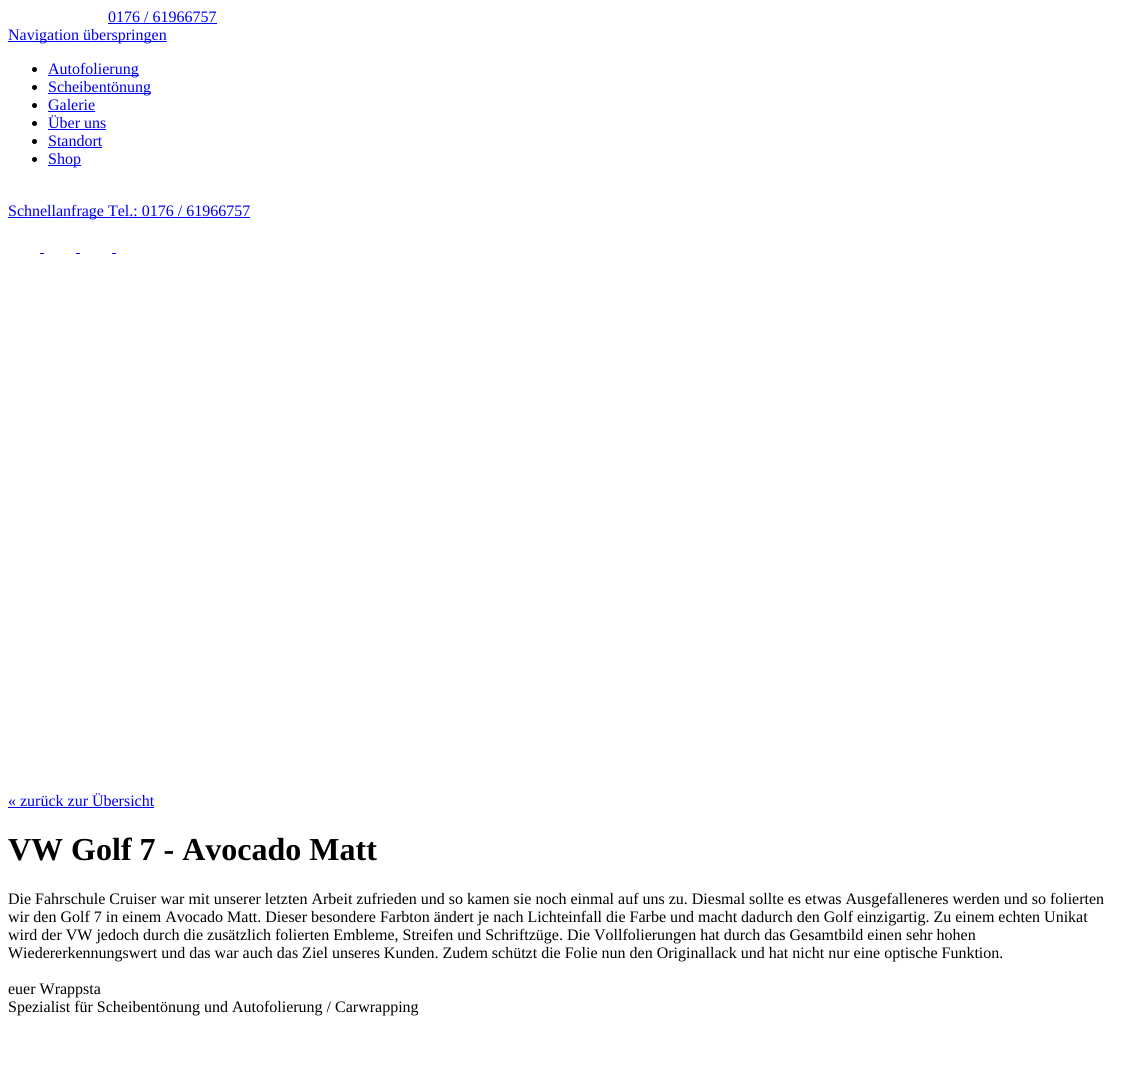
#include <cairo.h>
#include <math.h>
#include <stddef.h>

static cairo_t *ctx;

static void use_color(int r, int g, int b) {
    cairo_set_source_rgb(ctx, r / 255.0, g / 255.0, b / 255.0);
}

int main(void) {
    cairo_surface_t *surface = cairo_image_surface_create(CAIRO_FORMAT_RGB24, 1125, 1092);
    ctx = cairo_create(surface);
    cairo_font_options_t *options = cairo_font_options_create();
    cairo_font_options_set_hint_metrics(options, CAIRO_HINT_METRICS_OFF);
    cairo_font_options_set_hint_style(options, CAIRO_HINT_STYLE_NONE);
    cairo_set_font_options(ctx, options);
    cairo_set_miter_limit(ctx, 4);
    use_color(255, 255, 255);
    cairo_paint(ctx);
    cairo_select_font_face(ctx, "Liberation Serif", CAIRO_FONT_SLANT_NORMAL, CAIRO_FONT_WEIGHT_NORMAL);
    cairo_set_font_size(ctx, 16);
    use_color(0, 0, 238);
    cairo_move_to(ctx, 108, 22);
    cairo_show_text(ctx, "0176 / 61966757");
    cairo_rectangle(ctx, 108, 23, 109, 1);
    cairo_fill(ctx);
    cairo_rectangle(ctx, 8, 41, 159, 1);
    cairo_fill(ctx);
    cairo_move_to(ctx, 8, 40);
    cairo_show_text(ctx, "Navigation überspringen");
    use_color(0, 0, 0);
    cairo_new_path(ctx);
    cairo_arc(ctx, 34.5, 69.5, 2.5, 0, 2 * M_PI);
    cairo_fill(ctx);
    use_color(0, 0, 238);
    cairo_rectangle(ctx, 48, 75, 91, 1);
    cairo_fill(ctx);
    cairo_move_to(ctx, 48, 74);
    cairo_show_text(ctx, "Autofolierung");
    use_color(0, 0, 0);
    cairo_new_path(ctx);
    cairo_arc(ctx, 34.5, 87.5, 2.5, 0, 2 * M_PI);
    cairo_fill(ctx);
    use_color(0, 0, 238);
    cairo_rectangle(ctx, 48, 93, 103, 1);
    cairo_fill(ctx);
    cairo_move_to(ctx, 48, 92);
    cairo_show_text(ctx, "Scheibentönung");
    use_color(0, 0, 0);
    cairo_new_path(ctx);
    cairo_arc(ctx, 34.5, 105.5, 2.5, 0, 2 * M_PI);
    cairo_fill(ctx);
    use_color(0, 0, 238);
    cairo_move_to(ctx, 48, 110);
    cairo_show_text(ctx, "Galerie");
    cairo_rectangle(ctx, 48, 111, 47, 1);
    cairo_fill(ctx);
    use_color(0, 0, 0);
    cairo_arc(ctx, 34.5, 123.5, 2.5, 0, 2 * M_PI);
    cairo_fill(ctx);
    use_color(0, 0, 238);
    cairo_move_to(ctx, 48, 128);
    cairo_show_text(ctx, "Über uns");
    cairo_rectangle(ctx, 48, 129, 58, 1);
    cairo_fill(ctx);
    use_color(0, 0, 0);
    cairo_arc(ctx, 34.5, 141.5, 2.5, 0, 2 * M_PI);
    cairo_fill(ctx);
    use_color(0, 0, 238);
    cairo_move_to(ctx, 48, 146);
    cairo_show_text(ctx, "Standort");
    cairo_rectangle(ctx, 48, 147, 54, 1);
    cairo_fill(ctx);
    use_color(0, 0, 0);
    cairo_arc(ctx, 34.5, 159.5, 2.5, 0, 2 * M_PI);
    cairo_fill(ctx);
    use_color(0, 0, 238);
    cairo_rectangle(ctx, 48, 165, 33, 1);
    cairo_fill(ctx);
    cairo_move_to(ctx, 48, 164);
    cairo_show_text(ctx, "Shop");
    cairo_rectangle(ctx, 8, 217, 242, 1);
    cairo_fill(ctx);
    cairo_move_to(ctx, 8, 216);
    cairo_show_text(ctx, "Schnellanfrage Tel.: 0176 / 61966757");
    cairo_rectangle(ctx, 40, 253, 4, 1);
    cairo_fill(ctx);
    cairo_rectangle(ctx, 76, 253, 4, 1);
    cairo_fill(ctx);
    cairo_rectangle(ctx, 112, 253, 4, 1);
    cairo_fill(ctx);
    cairo_move_to(ctx, 8, 806);
    cairo_show_text(ctx, "« zurück zur Übersicht");
    cairo_rectangle(ctx, 8, 807, 146, 1);
    cairo_fill(ctx);
    cairo_select_font_face(ctx, "Liberation Serif", CAIRO_FONT_SLANT_NORMAL, CAIRO_FONT_WEIGHT_BOLD);
    cairo_set_font_size(ctx, 32);
    use_color(0, 0, 0);
    cairo_move_to(ctx, 8, 860);
    cairo_show_text(ctx, "VW Golf 7 - Avocado Matt");
    cairo_select_font_face(ctx, "Liberation Serif", CAIRO_FONT_SLANT_NORMAL, CAIRO_FONT_WEIGHT_NORMAL);
    cairo_set_font_size(ctx, 16);
    cairo_move_to(ctx, 8, 904);
    cairo_show_text(ctx, "Die Fahrschule Cruiser war mit unserer letzten Arbeit zufrieden und so kamen sie noch einmal auf uns zu. Diesmal sollte es etwas Ausgefalleneres werden und so folierten");
    cairo_move_to(ctx, 8, 922);
    cairo_show_text(ctx, "wir den Golf 7 in einem Avocado Matt. Dieser besondere Farbton ändert je nach Lichteinfall die Farbe und macht dadurch den Golf einzigartig. Zu einem echten Unikat");
    cairo_move_to(ctx, 8, 940);
    cairo_show_text(ctx, "wird der VW jedoch durch die zusätzlich folierten Embleme, Streifen und Schriftzüge. Die Vollfolierungen hat durch das Gesamtbild einen sehr hohen");
    cairo_move_to(ctx, 8, 958);
    cairo_show_text(ctx, "Wiedererkennungswert und das war auch das Ziel unseres Kunden. Zudem schützt die Folie nun den Originallack und hat nicht nur eine optische Funktion.");
    cairo_move_to(ctx, 8, 994);
    cairo_show_text(ctx, "euer Wrappsta");
    cairo_move_to(ctx, 8, 1012);
    cairo_show_text(ctx, "Spezialist für Scheibentönung und Autofolierung / Carwrapping");
    cairo_surface_write_to_png(surface, "result.png");
    cairo_font_options_destroy(options);
    cairo_destroy(ctx);
    cairo_surface_destroy(surface);
    return 0;
}
